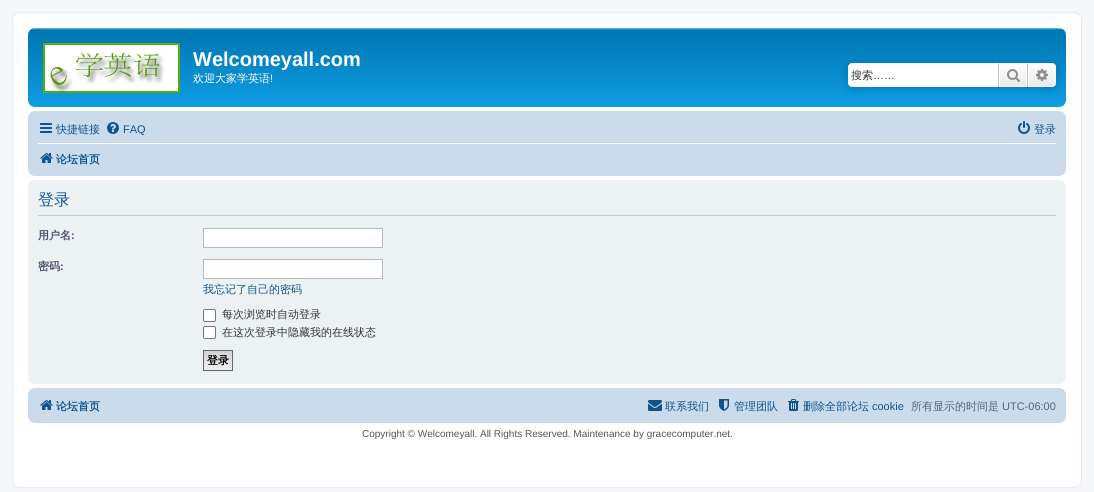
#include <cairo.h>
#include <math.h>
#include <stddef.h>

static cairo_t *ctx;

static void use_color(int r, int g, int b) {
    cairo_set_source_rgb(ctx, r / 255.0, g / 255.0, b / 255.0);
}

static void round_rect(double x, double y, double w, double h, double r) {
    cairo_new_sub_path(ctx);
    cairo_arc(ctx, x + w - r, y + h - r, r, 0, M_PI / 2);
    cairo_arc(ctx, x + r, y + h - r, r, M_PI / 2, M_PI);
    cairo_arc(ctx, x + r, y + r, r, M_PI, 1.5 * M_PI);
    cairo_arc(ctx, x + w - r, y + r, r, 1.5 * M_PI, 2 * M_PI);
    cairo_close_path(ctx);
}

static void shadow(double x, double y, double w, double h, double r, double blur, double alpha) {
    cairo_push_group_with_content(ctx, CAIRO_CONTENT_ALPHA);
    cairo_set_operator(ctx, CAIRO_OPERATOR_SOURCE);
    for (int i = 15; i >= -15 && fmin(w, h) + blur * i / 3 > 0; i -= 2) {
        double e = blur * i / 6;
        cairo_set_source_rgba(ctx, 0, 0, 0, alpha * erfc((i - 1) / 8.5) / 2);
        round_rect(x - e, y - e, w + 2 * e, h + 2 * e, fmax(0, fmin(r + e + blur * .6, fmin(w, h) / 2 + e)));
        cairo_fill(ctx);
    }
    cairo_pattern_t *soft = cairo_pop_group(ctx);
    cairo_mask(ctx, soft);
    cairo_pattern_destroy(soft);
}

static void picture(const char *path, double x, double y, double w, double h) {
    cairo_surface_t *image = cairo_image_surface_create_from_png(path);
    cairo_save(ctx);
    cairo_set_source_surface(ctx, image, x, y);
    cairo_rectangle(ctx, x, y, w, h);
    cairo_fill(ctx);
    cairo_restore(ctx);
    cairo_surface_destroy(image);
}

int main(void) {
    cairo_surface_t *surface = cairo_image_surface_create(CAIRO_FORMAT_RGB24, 1094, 492);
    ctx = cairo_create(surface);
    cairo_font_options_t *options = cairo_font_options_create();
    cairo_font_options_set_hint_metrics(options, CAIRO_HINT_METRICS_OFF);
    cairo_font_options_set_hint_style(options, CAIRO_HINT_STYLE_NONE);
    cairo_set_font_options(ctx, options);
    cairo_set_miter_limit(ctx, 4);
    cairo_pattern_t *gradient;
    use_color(245, 247, 250);
    cairo_paint(ctx);
    use_color(255, 255, 255);
    round_rect(12.5, 12.5, 1069, 475, 7.5);
    cairo_fill_preserve(ctx);
    use_color(230, 233, 237);
    cairo_set_line_width(ctx, 1);
    cairo_stroke(ctx);
    gradient = cairo_pattern_create_linear(547, 28, 547, 120);
    cairo_pattern_add_color_stop_rgba(gradient, 0, 0.416, 0.808, 1, 1);
    cairo_pattern_add_color_stop_rgba(gradient, 0.02, 0, 0.463, 0.694, 1);
    cairo_pattern_add_color_stop_rgba(gradient, 1, 0.071, 0.639, 0.922, 1);
    cairo_set_source(ctx, gradient);
    cairo_pattern_destroy(gradient);
    round_rect(28, 28, 1038, 79, 7);
    cairo_fill(ctx);
    picture("img1.png", 43, 43, 137, 50);
    cairo_select_font_face(ctx, "Liberation Sans", CAIRO_FONT_SLANT_NORMAL, CAIRO_FONT_WEIGHT_BOLD);
    cairo_set_font_size(ctx, 20);
    use_color(255, 255, 255);
    cairo_move_to(ctx, 193, 66);
    cairo_show_text(ctx, "Welcomeyall.com");
    cairo_select_font_face(ctx, "WenQuanYi Zen Hei Medium", CAIRO_FONT_SLANT_NORMAL, CAIRO_FONT_WEIGHT_NORMAL);
    cairo_set_font_size(ctx, 11);
    cairo_move_to(ctx, 193, 82);
    cairo_show_text(ctx, "欢迎大家学英语");
    cairo_select_font_face(ctx, "Liberation Sans", CAIRO_FONT_SLANT_NORMAL, CAIRO_FONT_WEIGHT_NORMAL);
    cairo_move_to(ctx, 270, 82);
    cairo_show_text(ctx, "!");
    use_color(0, 117, 176);
    shadow(848, 63, 208, 24, 4, 5, 1);
    use_color(255, 255, 255);
    cairo_new_path(ctx);
    cairo_move_to(ctx, 852, 63);
    cairo_line_to(ctx, 998, 63);
    cairo_line_to(ctx, 998, 87);
    cairo_line_to(ctx, 852, 87);
    cairo_curve_to(ctx, 850, 87, 848, 85, 848, 83);
    cairo_line_to(ctx, 848, 67);
    cairo_curve_to(ctx, 848, 65, 850, 63, 852, 63);
    cairo_close_path(ctx);
    cairo_fill(ctx);
    cairo_select_font_face(ctx, "WenQuanYi Zen Hei Medium", CAIRO_FONT_SLANT_NORMAL, CAIRO_FONT_WEIGHT_NORMAL);
    use_color(51, 51, 51);
    cairo_move_to(ctx, 851, 79);
    cairo_show_text(ctx, "搜索");
    cairo_select_font_face(ctx, "Liberation Sans", CAIRO_FONT_SLANT_NORMAL, CAIRO_FONT_WEIGHT_NORMAL);
    cairo_move_to(ctx, 873, 79);
    cairo_show_text(ctx, "……");
    gradient = cairo_pattern_create_linear(1013, 63, 1013, 87);
    cairo_pattern_add_color_stop_rgba(gradient, 0, 1, 1, 1, 1);
    cairo_pattern_add_color_stop_rgba(gradient, 1, 0.914, 0.914, 0.914, 1);
    cairo_set_source(ctx, gradient);
    cairo_pattern_destroy(gradient);
    cairo_rectangle(ctx, 1000, 64, 26, 22);
    cairo_fill(ctx);
    cairo_rectangle(ctx, 999.5, 63.5, 27, 23);
    use_color(255, 255, 255);
    cairo_stroke(ctx);
    use_color(199, 195, 191);
    cairo_rectangle(ctx, 1027, 63, 1, 24);
    cairo_fill(ctx);
    cairo_rectangle(ctx, 998, 63, 1, 24);
    cairo_fill(ctx);
    picture("img2.png", 1007, 69, 13, 13);
    gradient = cairo_pattern_create_linear(1042, 63, 1042, 87);
    cairo_pattern_add_color_stop_rgba(gradient, 0, 1, 1, 1, 1);
    cairo_pattern_add_color_stop_rgba(gradient, 1, 0.914, 0.914, 0.914, 1);
    cairo_set_source(ctx, gradient);
    cairo_pattern_destroy(gradient);
    cairo_new_path(ctx);
    cairo_move_to(ctx, 1028.5, 63.5);
    cairo_line_to(ctx, 1052, 63.5);
    cairo_curve_to(ctx, 1054, 63.5, 1055.5, 65, 1055.5, 67);
    cairo_line_to(ctx, 1055.5, 83);
    cairo_curve_to(ctx, 1055.5, 85, 1054, 86.5, 1052, 86.5);
    cairo_line_to(ctx, 1028.5, 86.5);
    cairo_close_path(ctx);
    cairo_fill_preserve(ctx);
    use_color(255, 255, 255);
    cairo_stroke(ctx);
    picture("img3.png", 1036, 69, 12, 12);
    use_color(202, 220, 235);
    round_rect(28, 111, 1038, 65, 7);
    cairo_fill(ctx);
    picture("img4.png", 40, 123, 12, 10);
    cairo_select_font_face(ctx, "WenQuanYi Zen Hei Medium", CAIRO_FONT_SLANT_NORMAL, CAIRO_FONT_WEIGHT_NORMAL);
    use_color(16, 82, 137);
    cairo_move_to(ctx, 56, 133);
    cairo_show_text(ctx, "快捷链接");
    picture("img5.png", 107, 122, 12, 12);
    cairo_select_font_face(ctx, "Liberation Sans", CAIRO_FONT_SLANT_NORMAL, CAIRO_FONT_WEIGHT_NORMAL);
    cairo_move_to(ctx, 123, 133);
    cairo_show_text(ctx, "FAQ");
    picture("img6.png", 1018, 121, 12, 13);
    cairo_select_font_face(ctx, "WenQuanYi Zen Hei Medium", CAIRO_FONT_SLANT_NORMAL, CAIRO_FONT_WEIGHT_NORMAL);
    cairo_move_to(ctx, 1034, 133);
    cairo_show_text(ctx, "登录");
    use_color(255, 255, 255);
    cairo_rectangle(ctx, 38, 143, 1018, 1);
    cairo_fill(ctx);
    picture("img7.png", 40, 153, 13, 10);
    cairo_select_font_face(ctx, "WenQuanYi Zen Hei", CAIRO_FONT_SLANT_NORMAL, CAIRO_FONT_WEIGHT_BOLD);
    use_color(16, 82, 137);
    cairo_move_to(ctx, 56, 163);
    cairo_show_text(ctx, "论坛首页");
    use_color(236, 241, 243);
    round_rect(28, 180, 1038, 204, 7);
    cairo_fill(ctx);
    use_color(204, 204, 204);
    cairo_rectangle(ctx, 38, 215, 1018, 1);
    cairo_fill(ctx);
    cairo_select_font_face(ctx, "WenQuanYi Zen Hei Medium", CAIRO_FONT_SLANT_NORMAL, CAIRO_FONT_WEIGHT_NORMAL);
    cairo_set_font_size(ctx, 16);
    use_color(17, 80, 152);
    cairo_move_to(ctx, 38, 205);
    cairo_show_text(ctx, "登录");
    cairo_select_font_face(ctx, "WenQuanYi Zen Hei", CAIRO_FONT_SLANT_NORMAL, CAIRO_FONT_WEIGHT_BOLD);
    cairo_set_font_size(ctx, 11);
    use_color(66, 80, 103);
    cairo_move_to(ctx, 38, 239);
    cairo_show_text(ctx, "用户名");
    cairo_select_font_face(ctx, "Liberation Sans", CAIRO_FONT_SLANT_NORMAL, CAIRO_FONT_WEIGHT_BOLD);
    cairo_move_to(ctx, 71, 239);
    cairo_show_text(ctx, ":");
    use_color(255, 255, 255);
    cairo_rectangle(ctx, 203.5, 228.5, 179, 19);
    cairo_fill_preserve(ctx);
    use_color(180, 186, 192);
    cairo_stroke(ctx);
    cairo_select_font_face(ctx, "WenQuanYi Zen Hei", CAIRO_FONT_SLANT_NORMAL, CAIRO_FONT_WEIGHT_BOLD);
    use_color(66, 80, 103);
    cairo_move_to(ctx, 38, 270);
    cairo_show_text(ctx, "密码");
    cairo_select_font_face(ctx, "Liberation Sans", CAIRO_FONT_SLANT_NORMAL, CAIRO_FONT_WEIGHT_BOLD);
    cairo_move_to(ctx, 60, 270);
    cairo_show_text(ctx, ":");
    use_color(255, 255, 255);
    cairo_rectangle(ctx, 203.5, 259.5, 179, 19);
    cairo_fill_preserve(ctx);
    use_color(180, 186, 192);
    cairo_stroke(ctx);
    cairo_select_font_face(ctx, "WenQuanYi Zen Hei Medium", CAIRO_FONT_SLANT_NORMAL, CAIRO_FONT_WEIGHT_NORMAL);
    use_color(16, 82, 137);
    cairo_move_to(ctx, 203, 293);
    cairo_show_text(ctx, "我忘记了自己的密码");
    use_color(255, 255, 255);
    round_rect(203.5, 309.5, 12, 12, 1.5);
    cairo_fill_preserve(ctx);
    use_color(118, 118, 118);
    cairo_stroke(ctx);
    use_color(51, 51, 51);
    cairo_move_to(ctx, 222, 318);
    cairo_show_text(ctx, "每次浏览时自动登录");
    use_color(255, 255, 255);
    round_rect(203.5, 326.5, 12, 12, 1.5);
    cairo_fill_preserve(ctx);
    use_color(118, 118, 118);
    cairo_stroke(ctx);
    use_color(51, 51, 51);
    cairo_move_to(ctx, 222, 336);
    cairo_show_text(ctx, "在这次登录中隐藏我的在线状态");
    gradient = cairo_pattern_create_linear(218, 351, 218, 370);
    cairo_pattern_add_color_stop_rgba(gradient, 0, 0.824, 0.824, 0.824, 1);
    cairo_pattern_add_color_stop_rgba(gradient, 1, 0.937, 0.937, 0.937, 1);
    cairo_set_source(ctx, gradient);
    cairo_pattern_destroy(gradient);
    cairo_rectangle(ctx, 204, 351, 28, 19);
    cairo_fill(ctx);
    cairo_rectangle(ctx, 203.5, 350.5, 29, 20);
    use_color(102, 102, 102);
    cairo_stroke(ctx);
    cairo_select_font_face(ctx, "WenQuanYi Zen Hei", CAIRO_FONT_SLANT_NORMAL, CAIRO_FONT_WEIGHT_BOLD);
    use_color(0, 0, 0);
    cairo_move_to(ctx, 207, 364);
    cairo_show_text(ctx, "登录");
    use_color(202, 220, 235);
    round_rect(28, 388, 1038, 35, 7);
    cairo_fill(ctx);
    picture("img7.png", 40, 400, 13, 10);
    use_color(16, 82, 137);
    cairo_move_to(ctx, 56, 410);
    cairo_show_text(ctx, "论坛首页");
    picture("img8.png", 648, 400, 14, 11);
    cairo_select_font_face(ctx, "WenQuanYi Zen Hei Medium", CAIRO_FONT_SLANT_NORMAL, CAIRO_FONT_WEIGHT_NORMAL);
    cairo_move_to(ctx, 665, 410);
    cairo_show_text(ctx, "联系我们");
    picture("img9.png", 719, 399, 10, 12);
    cairo_move_to(ctx, 734, 410);
    cairo_show_text(ctx, "管理团队");
    picture("img10.png", 788, 399, 11, 12);
    cairo_move_to(ctx, 803, 410);
    cairo_show_text(ctx, "删除全部论坛");
    cairo_select_font_face(ctx, "Liberation Sans", CAIRO_FONT_SLANT_NORMAL, CAIRO_FONT_WEIGHT_NORMAL);
    cairo_move_to(ctx, 872, 410);
    cairo_show_text(ctx, "cookie");
    cairo_select_font_face(ctx, "WenQuanYi Zen Hei Medium", CAIRO_FONT_SLANT_NORMAL, CAIRO_FONT_WEIGHT_NORMAL);
    use_color(83, 100, 130);
    cairo_move_to(ctx, 911, 410);
    cairo_show_text(ctx, "所有显示的时间是");
    cairo_select_font_face(ctx, "Liberation Sans", CAIRO_FONT_SLANT_NORMAL, CAIRO_FONT_WEIGHT_NORMAL);
    cairo_move_to(ctx, 1002, 410);
    cairo_show_text(ctx, "UTC-06:00");
    cairo_set_font_size(ctx, 10);
    use_color(85, 85, 85);
    cairo_move_to(ctx, 362, 437);
    cairo_show_text(ctx, "Copyright © Welcomeyall. All Rights Reserved. Maintenance by gracecomputer.net.");
    cairo_surface_write_to_png(surface, "result.png");
    cairo_font_options_destroy(options);
    cairo_destroy(ctx);
    cairo_surface_destroy(surface);
    return 0;
}
